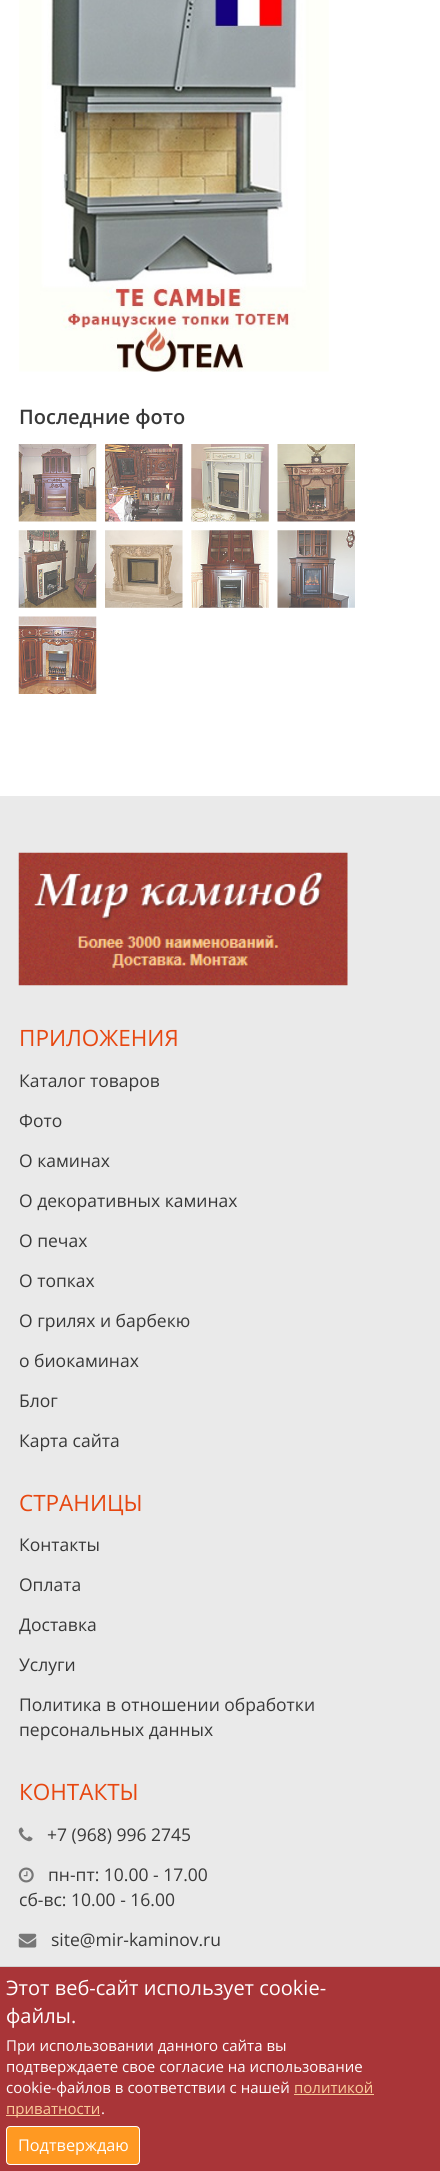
#include <cairo.h>
#include <math.h>
#include <stddef.h>

static cairo_t *ctx;

static void use_color(int r, int g, int b) {
    cairo_set_source_rgb(ctx, r / 255.0, g / 255.0, b / 255.0);
}

static void round_rect(double x, double y, double w, double h, double r) {
    cairo_new_sub_path(ctx);
    cairo_arc(ctx, x + w - r, y + h - r, r, 0, M_PI / 2);
    cairo_arc(ctx, x + r, y + h - r, r, M_PI / 2, M_PI);
    cairo_arc(ctx, x + r, y + r, r, M_PI, 1.5 * M_PI);
    cairo_arc(ctx, x + w - r, y + r, r, 1.5 * M_PI, 2 * M_PI);
    cairo_close_path(ctx);
}

static void picture(const char *path, double x, double y, double w, double h) {
    cairo_surface_t *image = cairo_image_surface_create_from_png(path);
    cairo_save(ctx);
    cairo_set_source_surface(ctx, image, x, y);
    cairo_rectangle(ctx, x, y, w, h);
    cairo_fill(ctx);
    cairo_restore(ctx);
    cairo_surface_destroy(image);
}

int main(void) {
    cairo_surface_t *surface = cairo_image_surface_create(CAIRO_FORMAT_RGB24, 440, 2171);
    ctx = cairo_create(surface);
    cairo_font_options_t *options = cairo_font_options_create();
    cairo_font_options_set_hint_metrics(options, CAIRO_HINT_METRICS_OFF);
    cairo_font_options_set_hint_style(options, CAIRO_HINT_STYLE_NONE);
    cairo_set_font_options(ctx, options);
    cairo_set_miter_limit(ctx, 4);
    use_color(255, 255, 255);
    cairo_paint(ctx);
    picture("img1.png", 19, 0, 310, 372);
    cairo_select_font_face(ctx, "Open Sans SemiBold", CAIRO_FONT_SLANT_NORMAL, CAIRO_FONT_WEIGHT_NORMAL);
    cairo_set_font_size(ctx, 20);
    use_color(56, 56, 56);
    cairo_move_to(ctx, 19, 424);
    cairo_show_text(ctx, "Последние фото");
    picture("img2.png", 18, 444, 79, 78);
    picture("img3.png", 105, 444, 78, 78);
    picture("img4.png", 191, 444, 78, 78);
    picture("img5.png", 277, 444, 78, 78);
    picture("img6.png", 18, 530, 79, 78);
    picture("img7.png", 105, 530, 78, 78);
    picture("img8.png", 191, 530, 78, 78);
    picture("img9.png", 277, 530, 78, 78);
    picture("img10.png", 18, 616, 79, 78);
    use_color(234, 234, 234);
    cairo_rectangle(ctx, 0, 796, 440, 1170);
    cairo_fill(ctx);
    picture("img11.png", 18, 852, 330, 134);
    cairo_select_font_face(ctx, "Open Sans", CAIRO_FONT_SLANT_NORMAL, CAIRO_FONT_WEIGHT_NORMAL);
    cairo_set_font_size(ctx, 22.5);
    use_color(231, 71, 16);
    cairo_move_to(ctx, 19, 1046);
    cairo_show_text(ctx, "ПРИЛОЖЕНИЯ");
    cairo_set_font_size(ctx, 17.5);
    use_color(56, 56, 56);
    cairo_move_to(ctx, 19, 1087);
    cairo_show_text(ctx, "Каталог товаров");
    cairo_move_to(ctx, 19, 1127);
    cairo_show_text(ctx, "Фото");
    cairo_move_to(ctx, 19, 1167);
    cairo_show_text(ctx, "О каминах");
    cairo_move_to(ctx, 19, 1207);
    cairo_show_text(ctx, "О декоративных каминах");
    cairo_move_to(ctx, 19, 1247);
    cairo_show_text(ctx, "О печах");
    cairo_move_to(ctx, 19, 1287);
    cairo_show_text(ctx, "О топках");
    cairo_move_to(ctx, 19, 1327);
    cairo_show_text(ctx, "О грилях и барбекю");
    cairo_move_to(ctx, 19, 1367);
    cairo_show_text(ctx, "о биокаминах");
    cairo_move_to(ctx, 19, 1407);
    cairo_show_text(ctx, "Блог");
    cairo_move_to(ctx, 19, 1447);
    cairo_show_text(ctx, "Карта сайта");
    cairo_set_font_size(ctx, 22.5);
    use_color(231, 71, 16);
    cairo_move_to(ctx, 19, 1511);
    cairo_show_text(ctx, "СТРАНИЦЫ");
    cairo_set_font_size(ctx, 17.5);
    use_color(56, 56, 56);
    cairo_move_to(ctx, 19, 1551);
    cairo_show_text(ctx, "Контакты");
    cairo_move_to(ctx, 19, 1591);
    cairo_show_text(ctx, "Оплата");
    cairo_move_to(ctx, 19, 1631);
    cairo_show_text(ctx, "Доставка");
    cairo_move_to(ctx, 19, 1671);
    cairo_show_text(ctx, "Услуги");
    cairo_move_to(ctx, 19, 1711);
    cairo_show_text(ctx, "Политика в отношении обработки");
    cairo_move_to(ctx, 19, 1736);
    cairo_show_text(ctx, "персональных данныx");
    cairo_set_font_size(ctx, 22.5);
    use_color(231, 71, 16);
    cairo_move_to(ctx, 19, 1800);
    cairo_show_text(ctx, "КОНТАКТЫ");
    picture("img12.png", 18, 1827, 15, 15);
    cairo_set_font_size(ctx, 17.5);
    use_color(56, 56, 56);
    cairo_move_to(ctx, 47, 1841);
    cairo_show_text(ctx, "+7 (968) 996 2745");
    picture("img13.png", 18, 1867, 16, 16);
    cairo_move_to(ctx, 48, 1881);
    cairo_show_text(ctx, "пн-пт: 10.00 - 17.00");
    cairo_move_to(ctx, 19, 1906);
    cairo_show_text(ctx, "сб-вс: 10.00 - 16.00");
    picture("img14.png", 18, 1933, 19, 15);
    cairo_move_to(ctx, 51, 1946);
    cairo_show_text(ctx, "site@mir-kaminov.ru");
    use_color(169, 53, 56);
    cairo_rectangle(ctx, 0, 1967, 440, 204);
    cairo_fill(ctx);
    use_color(210, 210, 210);
    cairo_rectangle(ctx, 0, 1966, 440, 1);
    cairo_fill(ctx);
    cairo_set_font_size(ctx, 20);
    use_color(255, 255, 255);
    cairo_move_to(ctx, 6, 1995);
    cairo_show_text(ctx, "Этот веб-сайт использует cookie-");
    cairo_move_to(ctx, 6, 2023);
    cairo_show_text(ctx, "файлы.");
    cairo_set_font_size(ctx, 15);
    cairo_move_to(ctx, 6, 2051);
    cairo_show_text(ctx, "При использовании данного сайта вы");
    cairo_move_to(ctx, 6, 2072);
    cairo_show_text(ctx, "подтверждаете свое согласие на использование");
    cairo_move_to(ctx, 6, 2093);
    cairo_show_text(ctx, "cookie-файлов в соответствии с нашей");
    use_color(251, 204, 153);
    cairo_move_to(ctx, 294, 2093);
    cairo_show_text(ctx, "политикой");
    cairo_rectangle(ctx, 294, 2094, 80, 1);
    cairo_fill(ctx);
    cairo_rectangle(ctx, 6, 2115, 94, 1);
    cairo_fill(ctx);
    cairo_move_to(ctx, 6, 2114);
    cairo_show_text(ctx, "приватности");
    use_color(255, 255, 255);
    cairo_move_to(ctx, 101, 2114);
    cairo_show_text(ctx, ".");
    use_color(255, 153, 34);
    round_rect(6.5, 2126.5, 133, 38, 3.5);
    cairo_fill_preserve(ctx);
    use_color(255, 255, 255);
    cairo_set_line_width(ctx, 1);
    cairo_stroke(ctx);
    cairo_set_font_size(ctx, 16.25);
    cairo_move_to(ctx, 18, 2151);
    cairo_show_text(ctx, "Подтверждаю");
    cairo_surface_write_to_png(surface, "result.png");
    cairo_font_options_destroy(options);
    cairo_destroy(ctx);
    cairo_surface_destroy(surface);
    return 0;
}
